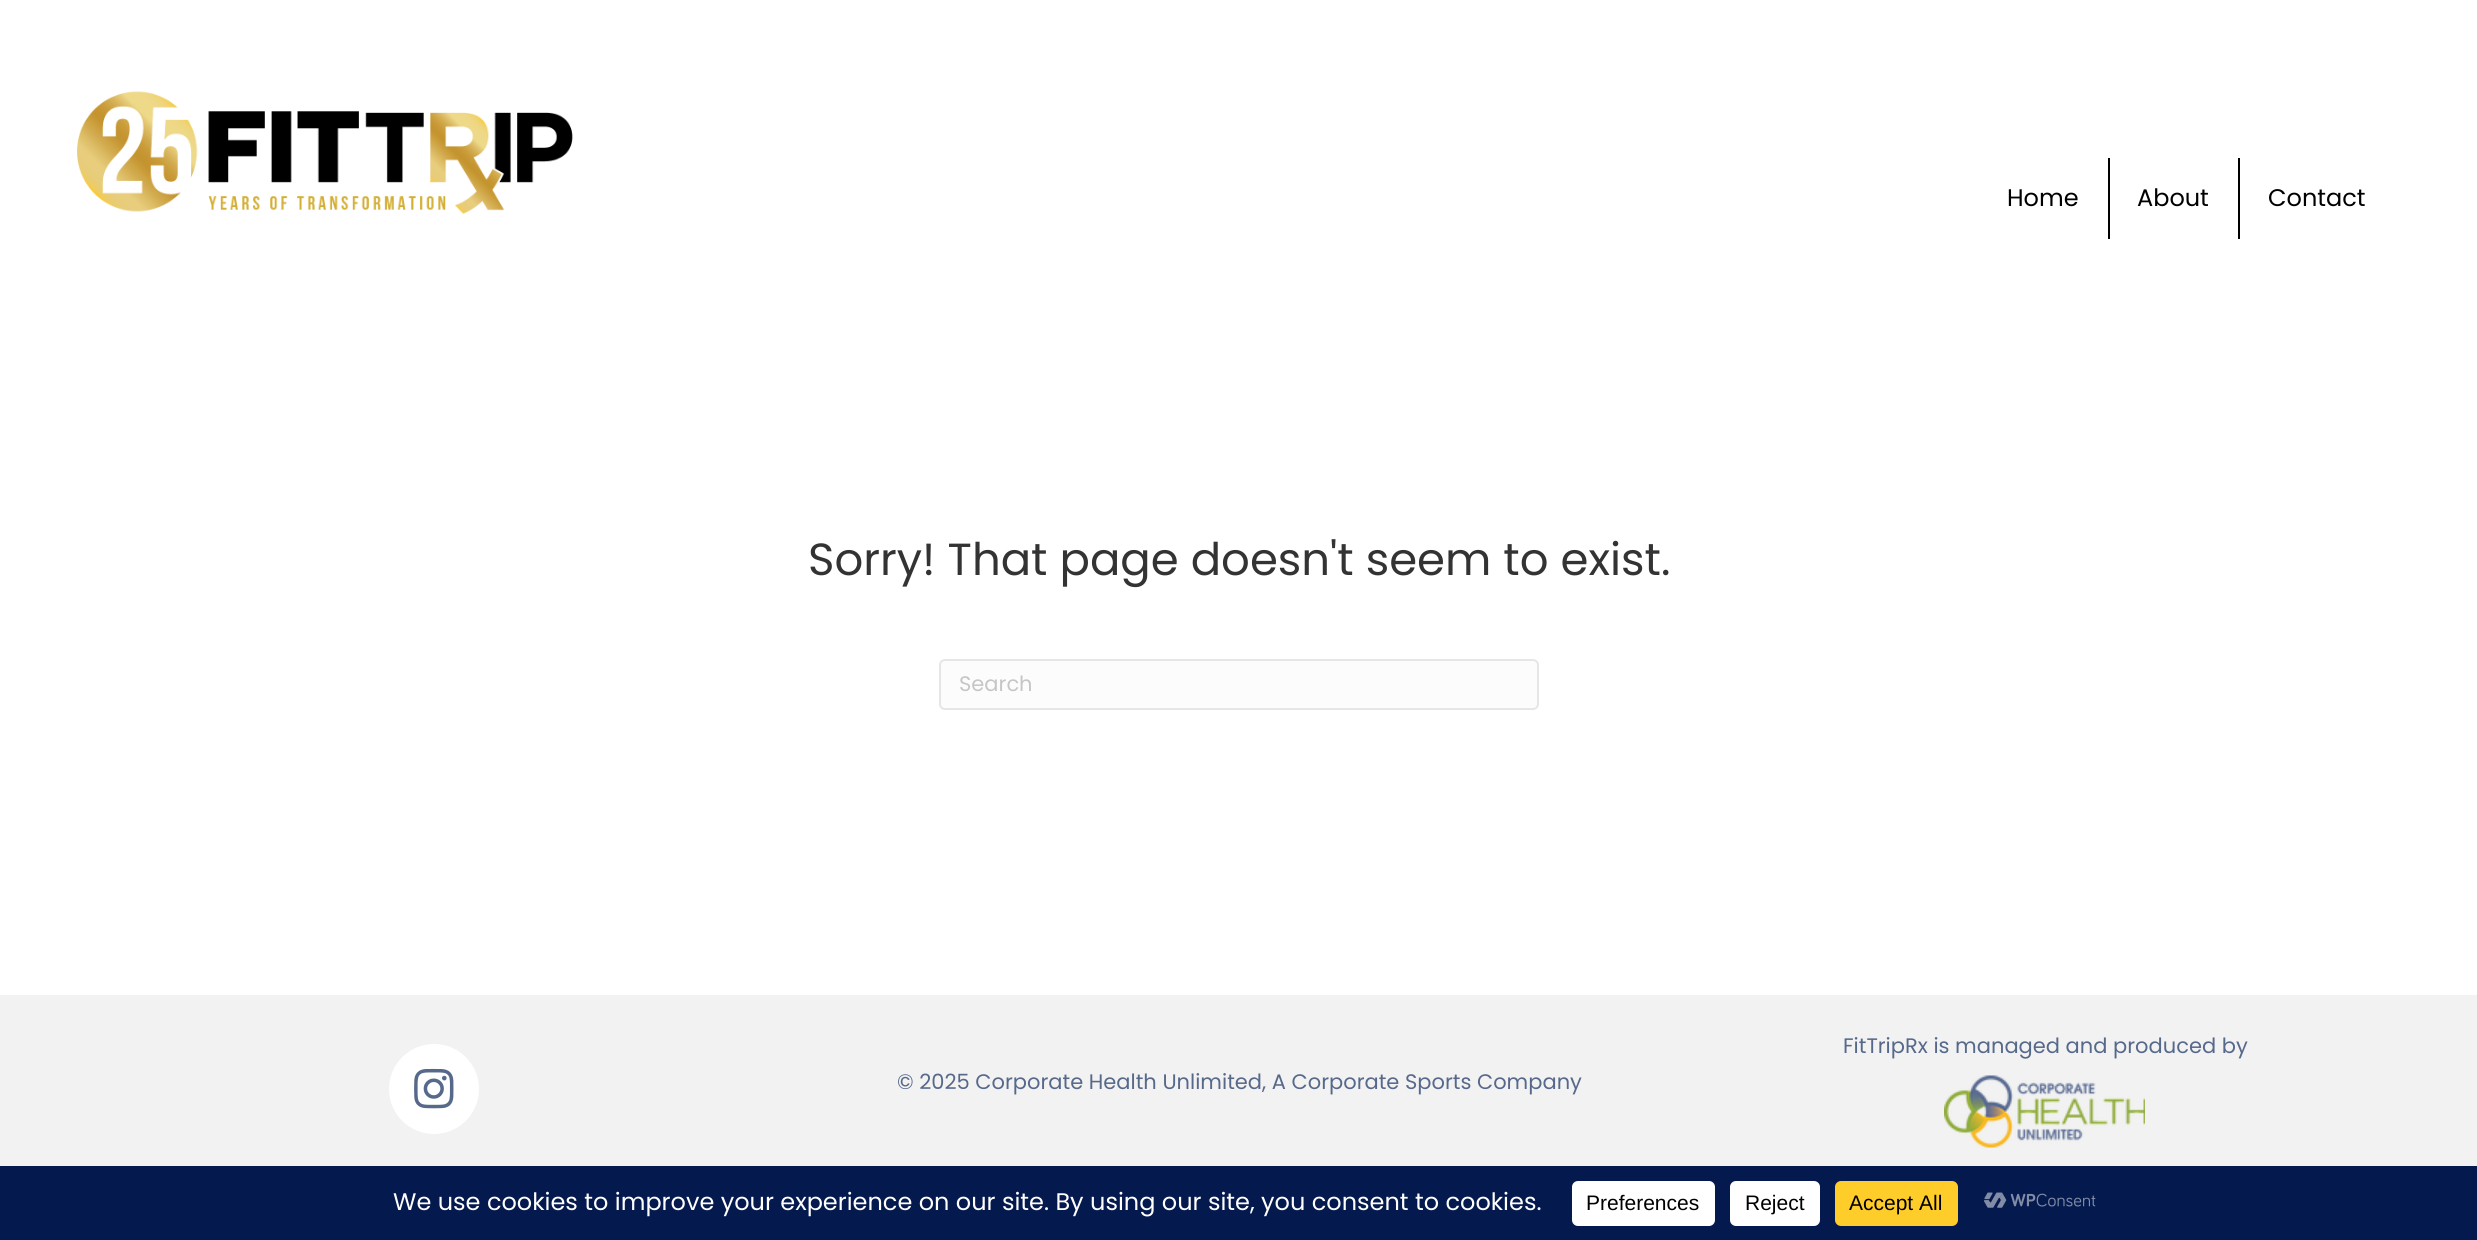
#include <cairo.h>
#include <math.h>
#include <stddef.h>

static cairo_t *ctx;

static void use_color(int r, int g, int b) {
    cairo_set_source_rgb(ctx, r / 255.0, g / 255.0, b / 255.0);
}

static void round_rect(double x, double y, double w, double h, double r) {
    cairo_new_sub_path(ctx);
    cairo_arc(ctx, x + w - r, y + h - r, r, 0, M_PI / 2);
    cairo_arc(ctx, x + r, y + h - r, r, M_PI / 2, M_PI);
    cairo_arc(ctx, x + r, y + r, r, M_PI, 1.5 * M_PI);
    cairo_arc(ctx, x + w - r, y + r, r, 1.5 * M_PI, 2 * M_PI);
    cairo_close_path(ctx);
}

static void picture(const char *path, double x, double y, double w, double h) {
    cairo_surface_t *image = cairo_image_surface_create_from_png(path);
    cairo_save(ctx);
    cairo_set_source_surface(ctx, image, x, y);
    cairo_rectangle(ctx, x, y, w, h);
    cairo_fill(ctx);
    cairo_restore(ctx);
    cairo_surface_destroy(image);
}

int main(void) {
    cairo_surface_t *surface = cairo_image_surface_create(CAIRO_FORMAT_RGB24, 2477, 1240);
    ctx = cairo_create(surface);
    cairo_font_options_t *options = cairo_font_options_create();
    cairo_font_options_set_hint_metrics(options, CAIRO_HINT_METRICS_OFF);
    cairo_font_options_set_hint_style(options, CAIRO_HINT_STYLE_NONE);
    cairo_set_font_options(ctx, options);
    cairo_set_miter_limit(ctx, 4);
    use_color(242, 242, 242);
    cairo_paint(ctx);
    use_color(255, 255, 255);
    cairo_rectangle(ctx, 0, 0, 2477, 995);
    cairo_fill(ctx);
    picture("img1.png", 77, 91, 496, 123);
    cairo_select_font_face(ctx, "Poppins", CAIRO_FONT_SLANT_NORMAL, CAIRO_FONT_WEIGHT_NORMAL);
    cairo_set_font_size(ctx, 24);
    use_color(0, 0, 0);
    cairo_move_to(ctx, 2007, 206);
    cairo_show_text(ctx, "Home");
    cairo_rectangle(ctx, 2108, 158, 2, 81);
    cairo_fill(ctx);
    cairo_move_to(ctx, 2137, 206);
    cairo_show_text(ctx, "About");
    cairo_rectangle(ctx, 2238, 158, 2, 81);
    cairo_fill(ctx);
    cairo_move_to(ctx, 2268, 206);
    cairo_show_text(ctx, "Contact");
    cairo_set_font_size(ctx, 45);
    use_color(51, 51, 51);
    cairo_move_to(ctx, 808, 575);
    cairo_show_text(ctx, "Sorry! That page doesn't seem to exist.");
    use_color(252, 252, 252);
    round_rect(940, 660, 598, 49, 5);
    cairo_fill_preserve(ctx);
    use_color(230, 230, 230);
    cairo_stroke(ctx);
    cairo_set_font_size(ctx, 21);
    use_color(198, 198, 198);
    cairo_move_to(ctx, 959, 691);
    cairo_show_text(ctx, "Search");
    use_color(255, 255, 255);
    cairo_new_path(ctx);
    cairo_arc(ctx, 434, 1089, 45, 0, 2 * M_PI);
    cairo_fill(ctx);
    picture("img2.png", 414, 1068, 40, 41);
    use_color(87, 105, 139);
    cairo_move_to(ctx, 897, 1089);
    cairo_show_text(ctx, "© 2025 Corporate Health Unlimited, A Corporate Sports Company");
    cairo_move_to(ctx, 1843, 1053);
    cairo_show_text(ctx, "FitTripRx is managed and produced by");
    picture("img3.png", 1944, 1075, 201, 73);
    use_color(4, 25, 78);
    cairo_rectangle(ctx, 0, 1166, 2477, 74);
    cairo_fill(ctx);
    cairo_set_font_size(ctx, 24);
    use_color(255, 255, 255);
    cairo_move_to(ctx, 393, 1210);
    cairo_show_text(ctx, "We use cookies to improve your experience on our site. By using our site, you consent to cookies.");
    round_rect(1572, 1181, 143, 45, 6);
    cairo_fill(ctx);
    cairo_select_font_face(ctx, "Liberation Sans", CAIRO_FONT_SLANT_NORMAL, CAIRO_FONT_WEIGHT_NORMAL);
    cairo_set_font_size(ctx, 21);
    use_color(0, 0, 0);
    cairo_move_to(ctx, 1586, 1210);
    cairo_show_text(ctx, "Preferences");
    use_color(255, 255, 255);
    round_rect(1730, 1181, 90, 45, 6);
    cairo_fill(ctx);
    use_color(0, 0, 0);
    cairo_move_to(ctx, 1745, 1210);
    cairo_show_text(ctx, "Reject");
    use_color(255, 205, 42);
    round_rect(1835, 1181, 123, 45, 6);
    cairo_fill(ctx);
    use_color(0, 0, 0);
    cairo_move_to(ctx, 1849, 1210);
    cairo_show_text(ctx, "Accept All");
    picture("img4.png", 1984, 1192, 112, 16);
    cairo_surface_write_to_png(surface, "result.png");
    cairo_font_options_destroy(options);
    cairo_destroy(ctx);
    cairo_surface_destroy(surface);
    return 0;
}
